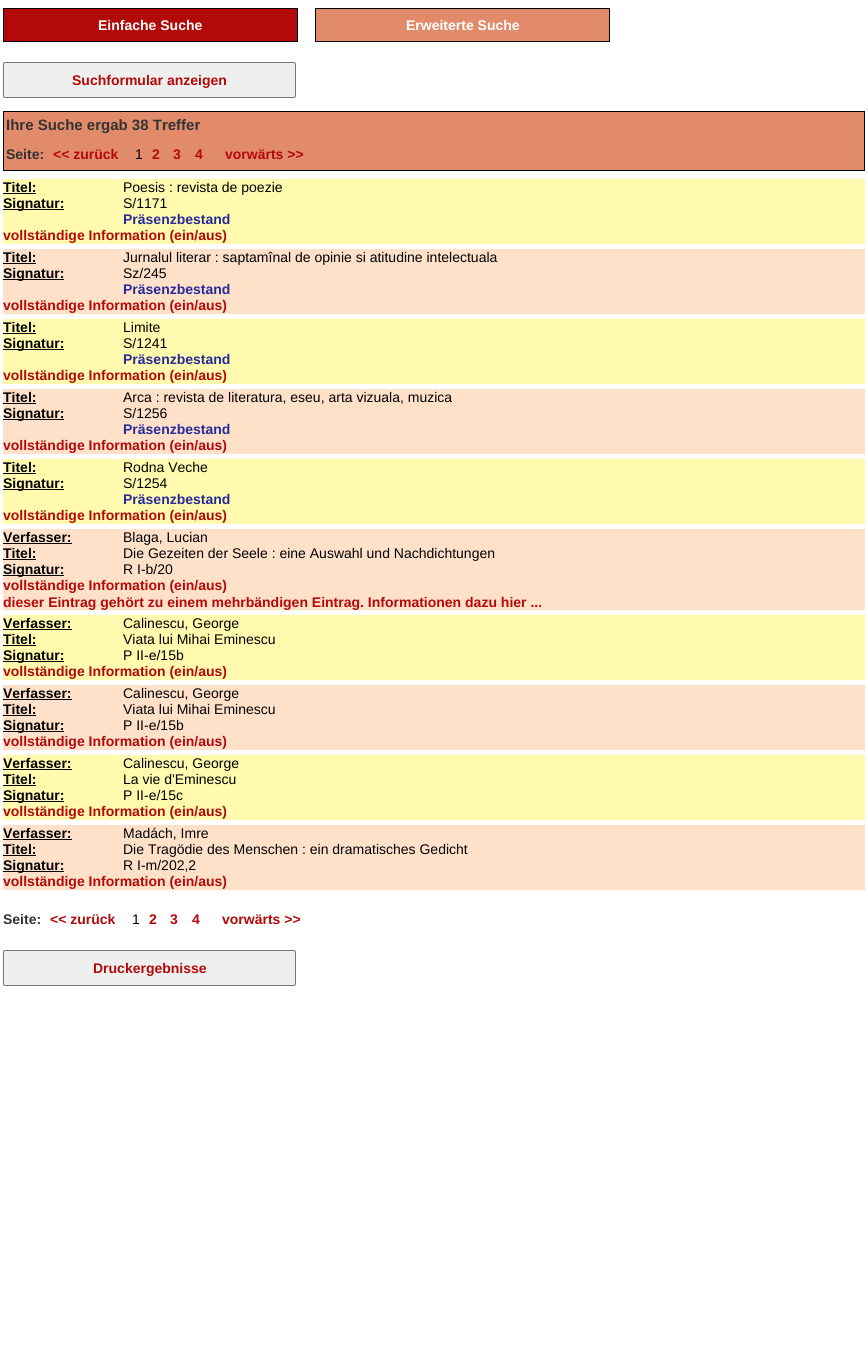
#include <cairo.h>
#include <math.h>
#include <stddef.h>

static cairo_t *ctx;

static void use_color(int r, int g, int b) {
    cairo_set_source_rgb(ctx, r / 255.0, g / 255.0, b / 255.0);
}

static void round_rect(double x, double y, double w, double h, double r) {
    cairo_new_sub_path(ctx);
    cairo_arc(ctx, x + w - r, y + h - r, r, 0, M_PI / 2);
    cairo_arc(ctx, x + r, y + h - r, r, M_PI / 2, M_PI);
    cairo_arc(ctx, x + r, y + r, r, M_PI, 1.5 * M_PI);
    cairo_arc(ctx, x + w - r, y + r, r, 1.5 * M_PI, 2 * M_PI);
    cairo_close_path(ctx);
}

int main(void) {
    cairo_surface_t *surface = cairo_image_surface_create(CAIRO_FORMAT_RGB24, 868, 1349);
    ctx = cairo_create(surface);
    cairo_font_options_t *options = cairo_font_options_create();
    cairo_font_options_set_hint_metrics(options, CAIRO_HINT_METRICS_OFF);
    cairo_font_options_set_hint_style(options, CAIRO_HINT_STYLE_NONE);
    cairo_set_font_options(ctx, options);
    cairo_set_miter_limit(ctx, 4);
    use_color(255, 255, 255);
    cairo_paint(ctx);
    use_color(179, 9, 9);
    cairo_rectangle(ctx, 3.5, 8.5, 294, 33);
    cairo_fill_preserve(ctx);
    use_color(0, 0, 0);
    cairo_set_line_width(ctx, 1);
    cairo_stroke(ctx);
    cairo_select_font_face(ctx, "Liberation Sans", CAIRO_FONT_SLANT_NORMAL, CAIRO_FONT_WEIGHT_BOLD);
    cairo_set_font_size(ctx, 14);
    use_color(255, 255, 255);
    cairo_move_to(ctx, 98, 30);
    cairo_show_text(ctx, "Einfache Suche");
    use_color(225, 139, 107);
    cairo_rectangle(ctx, 315.5, 8.5, 294, 33);
    cairo_fill_preserve(ctx);
    use_color(0, 0, 0);
    cairo_stroke(ctx);
    use_color(255, 255, 255);
    cairo_move_to(ctx, 406, 30);
    cairo_show_text(ctx, "Erweiterte Suche");
    use_color(239, 239, 239);
    round_rect(3.5, 62.5, 292, 35, 1.5);
    cairo_fill_preserve(ctx);
    use_color(118, 118, 118);
    cairo_stroke(ctx);
    use_color(179, 9, 9);
    cairo_move_to(ctx, 72, 85);
    cairo_show_text(ctx, "Suchformular anzeigen");
    use_color(225, 139, 107);
    cairo_rectangle(ctx, 3.5, 111.5, 861, 59);
    cairo_fill_preserve(ctx);
    use_color(0, 0, 0);
    cairo_stroke(ctx);
    cairo_set_font_size(ctx, 15);
    use_color(51, 51, 51);
    cairo_move_to(ctx, 6, 130);
    cairo_show_text(ctx, "Ihre Suche ergab 38 Treffer");
    cairo_set_font_size(ctx, 14);
    cairo_move_to(ctx, 6, 159);
    cairo_show_text(ctx, "Seite:");
    use_color(179, 9, 9);
    cairo_move_to(ctx, 53, 159);
    cairo_show_text(ctx, "<< zurück");
    cairo_select_font_face(ctx, "Liberation Sans", CAIRO_FONT_SLANT_NORMAL, CAIRO_FONT_WEIGHT_NORMAL);
    use_color(0, 0, 0);
    cairo_move_to(ctx, 135, 159);
    cairo_show_text(ctx, "1");
    cairo_select_font_face(ctx, "Liberation Sans", CAIRO_FONT_SLANT_NORMAL, CAIRO_FONT_WEIGHT_BOLD);
    use_color(179, 9, 9);
    cairo_move_to(ctx, 152, 159);
    cairo_show_text(ctx, "2");
    cairo_move_to(ctx, 173, 159);
    cairo_show_text(ctx, "3");
    cairo_move_to(ctx, 195, 159);
    cairo_show_text(ctx, "4");
    cairo_move_to(ctx, 225, 159);
    cairo_show_text(ctx, "vorwärts >>");
    use_color(255, 250, 174);
    cairo_rectangle(ctx, 3, 179, 862, 65);
    cairo_fill(ctx);
    use_color(0, 0, 0);
    cairo_move_to(ctx, 3, 192);
    cairo_show_text(ctx, "Titel:");
    cairo_rectangle(ctx, 3, 193, 33, 1);
    cairo_fill(ctx);
    cairo_select_font_face(ctx, "Liberation Sans", CAIRO_FONT_SLANT_NORMAL, CAIRO_FONT_WEIGHT_NORMAL);
    cairo_move_to(ctx, 123, 192);
    cairo_show_text(ctx, "Poesis : revista de poezie");
    cairo_rectangle(ctx, 3, 209, 61, 1);
    cairo_fill(ctx);
    cairo_select_font_face(ctx, "Liberation Sans", CAIRO_FONT_SLANT_NORMAL, CAIRO_FONT_WEIGHT_BOLD);
    cairo_move_to(ctx, 3, 208);
    cairo_show_text(ctx, "Signatur:");
    cairo_select_font_face(ctx, "Liberation Sans", CAIRO_FONT_SLANT_NORMAL, CAIRO_FONT_WEIGHT_NORMAL);
    cairo_move_to(ctx, 123, 208);
    cairo_show_text(ctx, "S/1171");
    cairo_select_font_face(ctx, "Liberation Sans", CAIRO_FONT_SLANT_NORMAL, CAIRO_FONT_WEIGHT_BOLD);
    use_color(37, 43, 155);
    cairo_move_to(ctx, 123, 224);
    cairo_show_text(ctx, "Präsenzbestand");
    use_color(179, 9, 9);
    cairo_move_to(ctx, 3, 240);
    cairo_show_text(ctx, "vollständige Information (ein/aus)");
    use_color(255, 225, 202);
    cairo_rectangle(ctx, 3, 249, 862, 65);
    cairo_fill(ctx);
    use_color(0, 0, 0);
    cairo_move_to(ctx, 3, 262);
    cairo_show_text(ctx, "Titel:");
    cairo_rectangle(ctx, 3, 263, 33, 1);
    cairo_fill(ctx);
    cairo_select_font_face(ctx, "Liberation Sans", CAIRO_FONT_SLANT_NORMAL, CAIRO_FONT_WEIGHT_NORMAL);
    cairo_move_to(ctx, 123, 262);
    cairo_show_text(ctx, "Jurnalul literar : saptamînal de opinie si atitudine intelectuala");
    cairo_rectangle(ctx, 3, 279, 61, 1);
    cairo_fill(ctx);
    cairo_select_font_face(ctx, "Liberation Sans", CAIRO_FONT_SLANT_NORMAL, CAIRO_FONT_WEIGHT_BOLD);
    cairo_move_to(ctx, 3, 278);
    cairo_show_text(ctx, "Signatur:");
    cairo_select_font_face(ctx, "Liberation Sans", CAIRO_FONT_SLANT_NORMAL, CAIRO_FONT_WEIGHT_NORMAL);
    cairo_move_to(ctx, 123, 278);
    cairo_show_text(ctx, "Sz/245");
    cairo_select_font_face(ctx, "Liberation Sans", CAIRO_FONT_SLANT_NORMAL, CAIRO_FONT_WEIGHT_BOLD);
    use_color(37, 43, 155);
    cairo_move_to(ctx, 123, 294);
    cairo_show_text(ctx, "Präsenzbestand");
    use_color(179, 9, 9);
    cairo_move_to(ctx, 3, 310);
    cairo_show_text(ctx, "vollständige Information (ein/aus)");
    use_color(255, 250, 174);
    cairo_rectangle(ctx, 3, 319, 862, 65);
    cairo_fill(ctx);
    use_color(0, 0, 0);
    cairo_move_to(ctx, 3, 332);
    cairo_show_text(ctx, "Titel:");
    cairo_rectangle(ctx, 3, 333, 33, 1);
    cairo_fill(ctx);
    cairo_select_font_face(ctx, "Liberation Sans", CAIRO_FONT_SLANT_NORMAL, CAIRO_FONT_WEIGHT_NORMAL);
    cairo_move_to(ctx, 123, 332);
    cairo_show_text(ctx, "Limite");
    cairo_rectangle(ctx, 3, 349, 61, 1);
    cairo_fill(ctx);
    cairo_select_font_face(ctx, "Liberation Sans", CAIRO_FONT_SLANT_NORMAL, CAIRO_FONT_WEIGHT_BOLD);
    cairo_move_to(ctx, 3, 348);
    cairo_show_text(ctx, "Signatur:");
    cairo_select_font_face(ctx, "Liberation Sans", CAIRO_FONT_SLANT_NORMAL, CAIRO_FONT_WEIGHT_NORMAL);
    cairo_move_to(ctx, 123, 348);
    cairo_show_text(ctx, "S/1241");
    cairo_select_font_face(ctx, "Liberation Sans", CAIRO_FONT_SLANT_NORMAL, CAIRO_FONT_WEIGHT_BOLD);
    use_color(37, 43, 155);
    cairo_move_to(ctx, 123, 364);
    cairo_show_text(ctx, "Präsenzbestand");
    use_color(179, 9, 9);
    cairo_move_to(ctx, 3, 380);
    cairo_show_text(ctx, "vollständige Information (ein/aus)");
    use_color(255, 225, 202);
    cairo_rectangle(ctx, 3, 389, 862, 65);
    cairo_fill(ctx);
    use_color(0, 0, 0);
    cairo_move_to(ctx, 3, 402);
    cairo_show_text(ctx, "Titel:");
    cairo_rectangle(ctx, 3, 403, 33, 1);
    cairo_fill(ctx);
    cairo_select_font_face(ctx, "Liberation Sans", CAIRO_FONT_SLANT_NORMAL, CAIRO_FONT_WEIGHT_NORMAL);
    cairo_move_to(ctx, 123, 402);
    cairo_show_text(ctx, "Arca : revista de literatura, eseu, arta vizuala, muzica");
    cairo_rectangle(ctx, 3, 419, 61, 1);
    cairo_fill(ctx);
    cairo_select_font_face(ctx, "Liberation Sans", CAIRO_FONT_SLANT_NORMAL, CAIRO_FONT_WEIGHT_BOLD);
    cairo_move_to(ctx, 3, 418);
    cairo_show_text(ctx, "Signatur:");
    cairo_select_font_face(ctx, "Liberation Sans", CAIRO_FONT_SLANT_NORMAL, CAIRO_FONT_WEIGHT_NORMAL);
    cairo_move_to(ctx, 123, 418);
    cairo_show_text(ctx, "S/1256");
    cairo_select_font_face(ctx, "Liberation Sans", CAIRO_FONT_SLANT_NORMAL, CAIRO_FONT_WEIGHT_BOLD);
    use_color(37, 43, 155);
    cairo_move_to(ctx, 123, 434);
    cairo_show_text(ctx, "Präsenzbestand");
    use_color(179, 9, 9);
    cairo_move_to(ctx, 3, 450);
    cairo_show_text(ctx, "vollständige Information (ein/aus)");
    use_color(255, 250, 174);
    cairo_rectangle(ctx, 3, 459, 862, 65);
    cairo_fill(ctx);
    use_color(0, 0, 0);
    cairo_move_to(ctx, 3, 472);
    cairo_show_text(ctx, "Titel:");
    cairo_rectangle(ctx, 3, 473, 33, 1);
    cairo_fill(ctx);
    cairo_select_font_face(ctx, "Liberation Sans", CAIRO_FONT_SLANT_NORMAL, CAIRO_FONT_WEIGHT_NORMAL);
    cairo_move_to(ctx, 123, 472);
    cairo_show_text(ctx, "Rodna Veche");
    cairo_rectangle(ctx, 3, 489, 61, 1);
    cairo_fill(ctx);
    cairo_select_font_face(ctx, "Liberation Sans", CAIRO_FONT_SLANT_NORMAL, CAIRO_FONT_WEIGHT_BOLD);
    cairo_move_to(ctx, 3, 488);
    cairo_show_text(ctx, "Signatur:");
    cairo_select_font_face(ctx, "Liberation Sans", CAIRO_FONT_SLANT_NORMAL, CAIRO_FONT_WEIGHT_NORMAL);
    cairo_move_to(ctx, 123, 488);
    cairo_show_text(ctx, "S/1254");
    cairo_select_font_face(ctx, "Liberation Sans", CAIRO_FONT_SLANT_NORMAL, CAIRO_FONT_WEIGHT_BOLD);
    use_color(37, 43, 155);
    cairo_move_to(ctx, 123, 504);
    cairo_show_text(ctx, "Präsenzbestand");
    use_color(179, 9, 9);
    cairo_move_to(ctx, 3, 520);
    cairo_show_text(ctx, "vollständige Information (ein/aus)");
    use_color(255, 225, 202);
    cairo_rectangle(ctx, 3, 529, 862, 81);
    cairo_fill(ctx);
    use_color(0, 0, 0);
    cairo_move_to(ctx, 3, 542);
    cairo_show_text(ctx, "Verfasser:");
    cairo_rectangle(ctx, 3, 543, 69, 1);
    cairo_fill(ctx);
    cairo_select_font_face(ctx, "Liberation Sans", CAIRO_FONT_SLANT_NORMAL, CAIRO_FONT_WEIGHT_NORMAL);
    cairo_move_to(ctx, 123, 542);
    cairo_show_text(ctx, "Blaga, Lucian");
    cairo_select_font_face(ctx, "Liberation Sans", CAIRO_FONT_SLANT_NORMAL, CAIRO_FONT_WEIGHT_BOLD);
    cairo_move_to(ctx, 3, 558);
    cairo_show_text(ctx, "Titel:");
    cairo_rectangle(ctx, 3, 559, 33, 1);
    cairo_fill(ctx);
    cairo_select_font_face(ctx, "Liberation Sans", CAIRO_FONT_SLANT_NORMAL, CAIRO_FONT_WEIGHT_NORMAL);
    cairo_move_to(ctx, 123, 558);
    cairo_show_text(ctx, "Die Gezeiten der Seele : eine Auswahl und Nachdichtungen");
    cairo_rectangle(ctx, 3, 575, 61, 1);
    cairo_fill(ctx);
    cairo_select_font_face(ctx, "Liberation Sans", CAIRO_FONT_SLANT_NORMAL, CAIRO_FONT_WEIGHT_BOLD);
    cairo_move_to(ctx, 3, 574);
    cairo_show_text(ctx, "Signatur:");
    cairo_select_font_face(ctx, "Liberation Sans", CAIRO_FONT_SLANT_NORMAL, CAIRO_FONT_WEIGHT_NORMAL);
    cairo_move_to(ctx, 123, 574);
    cairo_show_text(ctx, "R I-b/20");
    cairo_select_font_face(ctx, "Liberation Sans", CAIRO_FONT_SLANT_NORMAL, CAIRO_FONT_WEIGHT_BOLD);
    use_color(179, 9, 9);
    cairo_move_to(ctx, 3, 590);
    cairo_show_text(ctx, "vollständige Information (ein/aus)");
    cairo_move_to(ctx, 3, 607);
    cairo_show_text(ctx, "dieser Eintrag gehört zu einem mehrbändigen Eintrag. Informationen dazu hier ...");
    use_color(255, 250, 174);
    cairo_rectangle(ctx, 3, 615, 862, 65);
    cairo_fill(ctx);
    use_color(0, 0, 0);
    cairo_move_to(ctx, 3, 628);
    cairo_show_text(ctx, "Verfasser:");
    cairo_rectangle(ctx, 3, 629, 69, 1);
    cairo_fill(ctx);
    cairo_select_font_face(ctx, "Liberation Sans", CAIRO_FONT_SLANT_NORMAL, CAIRO_FONT_WEIGHT_NORMAL);
    cairo_move_to(ctx, 123, 628);
    cairo_show_text(ctx, "Calinescu, George");
    cairo_select_font_face(ctx, "Liberation Sans", CAIRO_FONT_SLANT_NORMAL, CAIRO_FONT_WEIGHT_BOLD);
    cairo_move_to(ctx, 3, 644);
    cairo_show_text(ctx, "Titel:");
    cairo_rectangle(ctx, 3, 645, 33, 1);
    cairo_fill(ctx);
    cairo_select_font_face(ctx, "Liberation Sans", CAIRO_FONT_SLANT_NORMAL, CAIRO_FONT_WEIGHT_NORMAL);
    cairo_move_to(ctx, 123, 644);
    cairo_show_text(ctx, "Viata lui Mihai Eminescu");
    cairo_rectangle(ctx, 3, 661, 61, 1);
    cairo_fill(ctx);
    cairo_select_font_face(ctx, "Liberation Sans", CAIRO_FONT_SLANT_NORMAL, CAIRO_FONT_WEIGHT_BOLD);
    cairo_move_to(ctx, 3, 660);
    cairo_show_text(ctx, "Signatur:");
    cairo_select_font_face(ctx, "Liberation Sans", CAIRO_FONT_SLANT_NORMAL, CAIRO_FONT_WEIGHT_NORMAL);
    cairo_move_to(ctx, 123, 660);
    cairo_show_text(ctx, "P II-e/15b");
    cairo_select_font_face(ctx, "Liberation Sans", CAIRO_FONT_SLANT_NORMAL, CAIRO_FONT_WEIGHT_BOLD);
    use_color(179, 9, 9);
    cairo_move_to(ctx, 3, 676);
    cairo_show_text(ctx, "vollständige Information (ein/aus)");
    use_color(255, 225, 202);
    cairo_rectangle(ctx, 3, 685, 862, 65);
    cairo_fill(ctx);
    use_color(0, 0, 0);
    cairo_move_to(ctx, 3, 698);
    cairo_show_text(ctx, "Verfasser:");
    cairo_rectangle(ctx, 3, 699, 69, 1);
    cairo_fill(ctx);
    cairo_select_font_face(ctx, "Liberation Sans", CAIRO_FONT_SLANT_NORMAL, CAIRO_FONT_WEIGHT_NORMAL);
    cairo_move_to(ctx, 123, 698);
    cairo_show_text(ctx, "Calinescu, George");
    cairo_select_font_face(ctx, "Liberation Sans", CAIRO_FONT_SLANT_NORMAL, CAIRO_FONT_WEIGHT_BOLD);
    cairo_move_to(ctx, 3, 714);
    cairo_show_text(ctx, "Titel:");
    cairo_rectangle(ctx, 3, 715, 33, 1);
    cairo_fill(ctx);
    cairo_select_font_face(ctx, "Liberation Sans", CAIRO_FONT_SLANT_NORMAL, CAIRO_FONT_WEIGHT_NORMAL);
    cairo_move_to(ctx, 123, 714);
    cairo_show_text(ctx, "Viata lui Mihai Eminescu");
    cairo_rectangle(ctx, 3, 731, 61, 1);
    cairo_fill(ctx);
    cairo_select_font_face(ctx, "Liberation Sans", CAIRO_FONT_SLANT_NORMAL, CAIRO_FONT_WEIGHT_BOLD);
    cairo_move_to(ctx, 3, 730);
    cairo_show_text(ctx, "Signatur:");
    cairo_select_font_face(ctx, "Liberation Sans", CAIRO_FONT_SLANT_NORMAL, CAIRO_FONT_WEIGHT_NORMAL);
    cairo_move_to(ctx, 123, 730);
    cairo_show_text(ctx, "P II-e/15b");
    cairo_select_font_face(ctx, "Liberation Sans", CAIRO_FONT_SLANT_NORMAL, CAIRO_FONT_WEIGHT_BOLD);
    use_color(179, 9, 9);
    cairo_move_to(ctx, 3, 746);
    cairo_show_text(ctx, "vollständige Information (ein/aus)");
    use_color(255, 250, 174);
    cairo_rectangle(ctx, 3, 755, 862, 65);
    cairo_fill(ctx);
    use_color(0, 0, 0);
    cairo_move_to(ctx, 3, 768);
    cairo_show_text(ctx, "Verfasser:");
    cairo_rectangle(ctx, 3, 769, 69, 1);
    cairo_fill(ctx);
    cairo_select_font_face(ctx, "Liberation Sans", CAIRO_FONT_SLANT_NORMAL, CAIRO_FONT_WEIGHT_NORMAL);
    cairo_move_to(ctx, 123, 768);
    cairo_show_text(ctx, "Calinescu, George");
    cairo_select_font_face(ctx, "Liberation Sans", CAIRO_FONT_SLANT_NORMAL, CAIRO_FONT_WEIGHT_BOLD);
    cairo_move_to(ctx, 3, 784);
    cairo_show_text(ctx, "Titel:");
    cairo_rectangle(ctx, 3, 785, 33, 1);
    cairo_fill(ctx);
    cairo_select_font_face(ctx, "Liberation Sans", CAIRO_FONT_SLANT_NORMAL, CAIRO_FONT_WEIGHT_NORMAL);
    cairo_move_to(ctx, 123, 784);
    cairo_show_text(ctx, "La vie d'Eminescu");
    cairo_rectangle(ctx, 3, 801, 61, 1);
    cairo_fill(ctx);
    cairo_select_font_face(ctx, "Liberation Sans", CAIRO_FONT_SLANT_NORMAL, CAIRO_FONT_WEIGHT_BOLD);
    cairo_move_to(ctx, 3, 800);
    cairo_show_text(ctx, "Signatur:");
    cairo_select_font_face(ctx, "Liberation Sans", CAIRO_FONT_SLANT_NORMAL, CAIRO_FONT_WEIGHT_NORMAL);
    cairo_move_to(ctx, 123, 800);
    cairo_show_text(ctx, "P II-e/15c");
    cairo_select_font_face(ctx, "Liberation Sans", CAIRO_FONT_SLANT_NORMAL, CAIRO_FONT_WEIGHT_BOLD);
    use_color(179, 9, 9);
    cairo_move_to(ctx, 3, 816);
    cairo_show_text(ctx, "vollständige Information (ein/aus)");
    use_color(255, 225, 202);
    cairo_rectangle(ctx, 3, 825, 862, 65);
    cairo_fill(ctx);
    use_color(0, 0, 0);
    cairo_move_to(ctx, 3, 838);
    cairo_show_text(ctx, "Verfasser:");
    cairo_rectangle(ctx, 3, 839, 69, 1);
    cairo_fill(ctx);
    cairo_select_font_face(ctx, "Liberation Sans", CAIRO_FONT_SLANT_NORMAL, CAIRO_FONT_WEIGHT_NORMAL);
    cairo_move_to(ctx, 123, 838);
    cairo_show_text(ctx, "Madách, Imre");
    cairo_select_font_face(ctx, "Liberation Sans", CAIRO_FONT_SLANT_NORMAL, CAIRO_FONT_WEIGHT_BOLD);
    cairo_move_to(ctx, 3, 854);
    cairo_show_text(ctx, "Titel:");
    cairo_rectangle(ctx, 3, 855, 33, 1);
    cairo_fill(ctx);
    cairo_select_font_face(ctx, "Liberation Sans", CAIRO_FONT_SLANT_NORMAL, CAIRO_FONT_WEIGHT_NORMAL);
    cairo_move_to(ctx, 123, 854);
    cairo_show_text(ctx, "Die Tragödie des Menschen : ein dramatisches Gedicht");
    cairo_rectangle(ctx, 3, 871, 61, 1);
    cairo_fill(ctx);
    cairo_select_font_face(ctx, "Liberation Sans", CAIRO_FONT_SLANT_NORMAL, CAIRO_FONT_WEIGHT_BOLD);
    cairo_move_to(ctx, 3, 870);
    cairo_show_text(ctx, "Signatur:");
    cairo_select_font_face(ctx, "Liberation Sans", CAIRO_FONT_SLANT_NORMAL, CAIRO_FONT_WEIGHT_NORMAL);
    cairo_move_to(ctx, 123, 870);
    cairo_show_text(ctx, "R I-m/202,2");
    cairo_select_font_face(ctx, "Liberation Sans", CAIRO_FONT_SLANT_NORMAL, CAIRO_FONT_WEIGHT_BOLD);
    use_color(179, 9, 9);
    cairo_move_to(ctx, 3, 886);
    cairo_show_text(ctx, "vollständige Information (ein/aus)");
    use_color(51, 51, 51);
    cairo_move_to(ctx, 3, 924);
    cairo_show_text(ctx, "Seite:");
    use_color(179, 9, 9);
    cairo_move_to(ctx, 50, 924);
    cairo_show_text(ctx, "<< zurück");
    cairo_select_font_face(ctx, "Liberation Sans", CAIRO_FONT_SLANT_NORMAL, CAIRO_FONT_WEIGHT_NORMAL);
    use_color(0, 0, 0);
    cairo_move_to(ctx, 132, 924);
    cairo_show_text(ctx, "1");
    cairo_select_font_face(ctx, "Liberation Sans", CAIRO_FONT_SLANT_NORMAL, CAIRO_FONT_WEIGHT_BOLD);
    use_color(179, 9, 9);
    cairo_move_to(ctx, 149, 924);
    cairo_show_text(ctx, "2");
    cairo_move_to(ctx, 170, 924);
    cairo_show_text(ctx, "3");
    cairo_move_to(ctx, 192, 924);
    cairo_show_text(ctx, "4");
    cairo_move_to(ctx, 222, 924);
    cairo_show_text(ctx, "vorwärts >>");
    use_color(239, 239, 239);
    round_rect(3.5, 950.5, 292, 35, 1.5);
    cairo_fill_preserve(ctx);
    use_color(118, 118, 118);
    cairo_stroke(ctx);
    use_color(179, 9, 9);
    cairo_move_to(ctx, 93, 973);
    cairo_show_text(ctx, "Druckergebnisse");
    cairo_surface_write_to_png(surface, "result.png");
    cairo_font_options_destroy(options);
    cairo_destroy(ctx);
    cairo_surface_destroy(surface);
    return 0;
}
